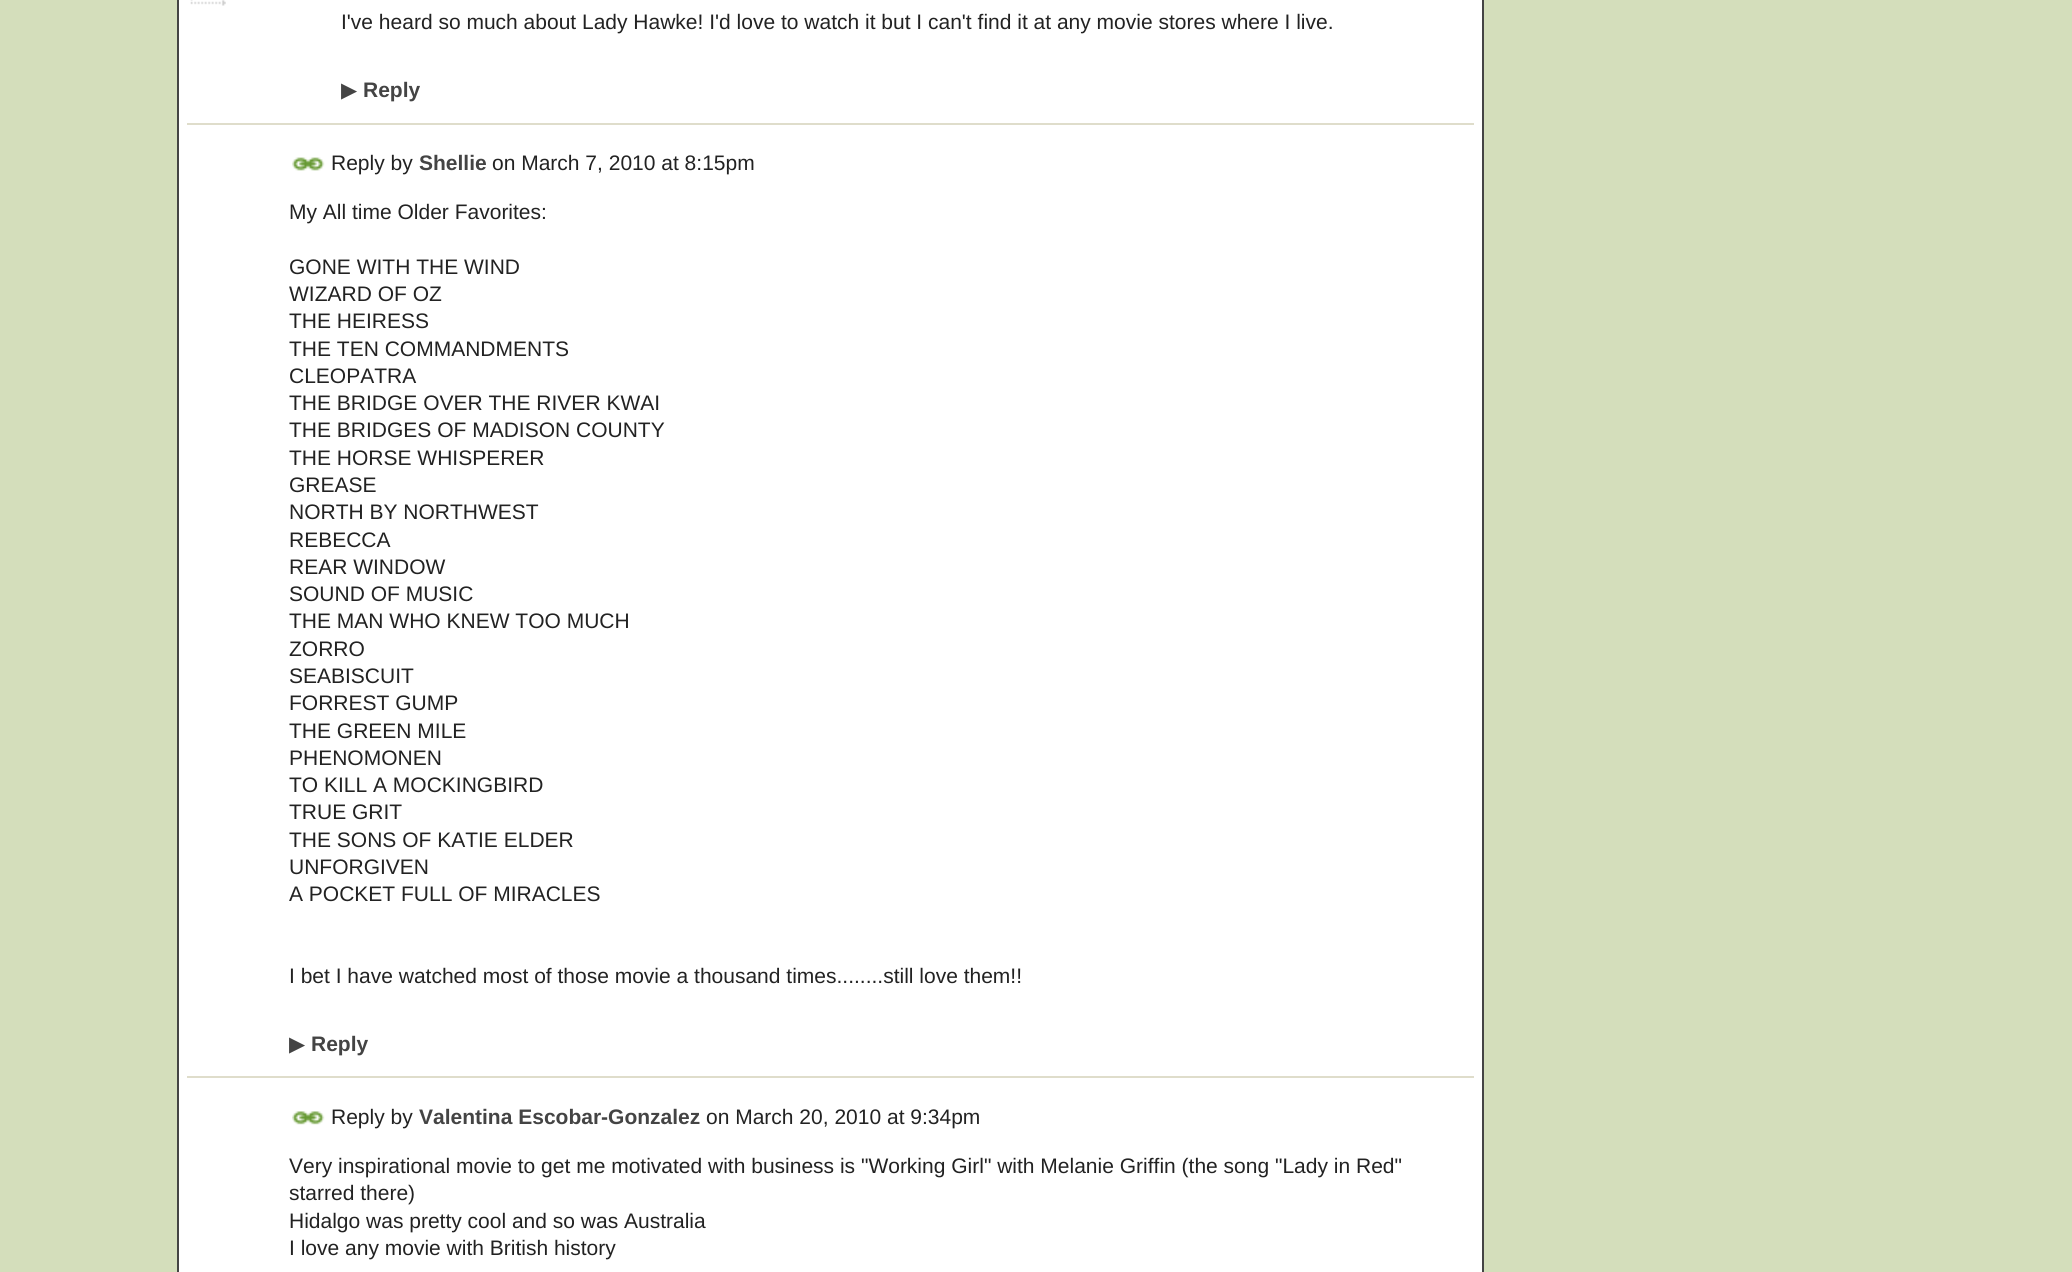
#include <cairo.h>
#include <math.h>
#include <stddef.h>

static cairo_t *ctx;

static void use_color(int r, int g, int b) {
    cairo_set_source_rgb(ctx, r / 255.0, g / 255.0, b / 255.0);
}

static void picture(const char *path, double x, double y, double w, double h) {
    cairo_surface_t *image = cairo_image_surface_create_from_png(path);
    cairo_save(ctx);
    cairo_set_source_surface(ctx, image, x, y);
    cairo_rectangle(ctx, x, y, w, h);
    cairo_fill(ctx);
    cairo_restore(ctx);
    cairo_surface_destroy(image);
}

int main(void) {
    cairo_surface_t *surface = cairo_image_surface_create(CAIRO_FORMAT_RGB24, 2072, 1272);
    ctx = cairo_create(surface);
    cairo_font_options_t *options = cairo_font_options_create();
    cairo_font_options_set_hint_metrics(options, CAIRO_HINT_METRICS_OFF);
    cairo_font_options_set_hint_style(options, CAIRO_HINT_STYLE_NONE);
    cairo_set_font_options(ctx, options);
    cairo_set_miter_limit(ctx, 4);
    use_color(212, 222, 187);
    cairo_paint(ctx);
    use_color(255, 255, 255);
    cairo_rectangle(ctx, 178, -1, 1305, 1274);
    cairo_fill_preserve(ctx);
    use_color(68, 68, 68);
    cairo_stroke(ctx);
    picture("img1.png", 190, 0, 36, 6);
    cairo_select_font_face(ctx, "Liberation Sans", CAIRO_FONT_SLANT_NORMAL, CAIRO_FONT_WEIGHT_NORMAL);
    cairo_set_font_size(ctx, 21);
    use_color(34, 34, 34);
    cairo_move_to(ctx, 341, 29);
    cairo_show_text(ctx, "I've heard so much about Lady Hawke! I'd love to watch it but I can't find it at any movie stores where I live.");
    cairo_select_font_face(ctx, "DejaVu Sans", CAIRO_FONT_SLANT_NORMAL, CAIRO_FONT_WEIGHT_NORMAL);
    use_color(68, 68, 68);
    cairo_move_to(ctx, 341, 97);
    cairo_show_text(ctx, "▶");
    cairo_select_font_face(ctx, "Liberation Sans", CAIRO_FONT_SLANT_NORMAL, CAIRO_FONT_WEIGHT_BOLD);
    cairo_move_to(ctx, 363, 97);
    cairo_show_text(ctx, "Reply");
    use_color(223, 221, 203);
    cairo_rectangle(ctx, 187, 123, 1287, 2);
    cairo_fill(ctx);
    picture("img2.png", 292, 157, 33, 14);
    cairo_select_font_face(ctx, "Liberation Sans", CAIRO_FONT_SLANT_NORMAL, CAIRO_FONT_WEIGHT_NORMAL);
    use_color(34, 34, 34);
    cairo_move_to(ctx, 331, 170);
    cairo_show_text(ctx, "Reply by");
    cairo_select_font_face(ctx, "Liberation Sans", CAIRO_FONT_SLANT_NORMAL, CAIRO_FONT_WEIGHT_BOLD);
    use_color(68, 68, 68);
    cairo_move_to(ctx, 419, 170);
    cairo_show_text(ctx, "Shellie");
    cairo_select_font_face(ctx, "Liberation Sans", CAIRO_FONT_SLANT_NORMAL, CAIRO_FONT_WEIGHT_NORMAL);
    use_color(34, 34, 34);
    cairo_move_to(ctx, 492, 170);
    cairo_show_text(ctx, "on March 7, 2010 at 8:15pm");
    cairo_move_to(ctx, 289, 219);
    cairo_show_text(ctx, "My All time Older Favorites:");
    cairo_move_to(ctx, 289, 274);
    cairo_show_text(ctx, "GONE WITH THE WIND");
    cairo_move_to(ctx, 289, 301);
    cairo_show_text(ctx, "WIZARD OF OZ");
    cairo_move_to(ctx, 289, 328);
    cairo_show_text(ctx, "THE HEIRESS");
    cairo_move_to(ctx, 289, 356);
    cairo_show_text(ctx, "THE TEN COMMANDMENTS");
    cairo_move_to(ctx, 289, 383);
    cairo_show_text(ctx, "CLEOPATRA");
    cairo_move_to(ctx, 289, 410);
    cairo_show_text(ctx, "THE BRIDGE OVER THE RIVER KWAI");
    cairo_move_to(ctx, 289, 437);
    cairo_show_text(ctx, "THE BRIDGES OF MADISON COUNTY");
    cairo_move_to(ctx, 289, 465);
    cairo_show_text(ctx, "THE HORSE WHISPERER");
    cairo_move_to(ctx, 289, 492);
    cairo_show_text(ctx, "GREASE");
    cairo_move_to(ctx, 289, 519);
    cairo_show_text(ctx, "NORTH BY NORTHWEST");
    cairo_move_to(ctx, 289, 547);
    cairo_show_text(ctx, "REBECCA");
    cairo_move_to(ctx, 289, 574);
    cairo_show_text(ctx, "REAR WINDOW");
    cairo_move_to(ctx, 289, 601);
    cairo_show_text(ctx, "SOUND OF MUSIC");
    cairo_move_to(ctx, 289, 628);
    cairo_show_text(ctx, "THE MAN WHO KNEW TOO MUCH");
    cairo_move_to(ctx, 289, 656);
    cairo_show_text(ctx, "ZORRO");
    cairo_move_to(ctx, 289, 683);
    cairo_show_text(ctx, "SEABISCUIT");
    cairo_move_to(ctx, 289, 710);
    cairo_show_text(ctx, "FORREST GUMP");
    cairo_move_to(ctx, 289, 738);
    cairo_show_text(ctx, "THE GREEN MILE");
    cairo_move_to(ctx, 289, 765);
    cairo_show_text(ctx, "PHENOMONEN");
    cairo_move_to(ctx, 289, 792);
    cairo_show_text(ctx, "TO KILL A MOCKINGBIRD");
    cairo_move_to(ctx, 289, 819);
    cairo_show_text(ctx, "TRUE GRIT");
    cairo_move_to(ctx, 289, 847);
    cairo_show_text(ctx, "THE SONS OF KATIE ELDER");
    cairo_move_to(ctx, 289, 874);
    cairo_show_text(ctx, "UNFORGIVEN");
    cairo_move_to(ctx, 289, 901);
    cairo_show_text(ctx, "A POCKET FULL OF MIRACLES");
    cairo_move_to(ctx, 289, 983);
    cairo_show_text(ctx, "I bet I have watched most of those movie a thousand times........still love them!!");
    cairo_select_font_face(ctx, "DejaVu Sans", CAIRO_FONT_SLANT_NORMAL, CAIRO_FONT_WEIGHT_NORMAL);
    use_color(68, 68, 68);
    cairo_move_to(ctx, 289, 1051);
    cairo_show_text(ctx, "▶");
    cairo_select_font_face(ctx, "Liberation Sans", CAIRO_FONT_SLANT_NORMAL, CAIRO_FONT_WEIGHT_BOLD);
    cairo_move_to(ctx, 311, 1051);
    cairo_show_text(ctx, "Reply");
    use_color(223, 221, 203);
    cairo_rectangle(ctx, 187, 1076, 1287, 2);
    cairo_fill(ctx);
    picture("img3.png", 292, 1111, 33, 14);
    cairo_select_font_face(ctx, "Liberation Sans", CAIRO_FONT_SLANT_NORMAL, CAIRO_FONT_WEIGHT_NORMAL);
    use_color(34, 34, 34);
    cairo_move_to(ctx, 331, 1124);
    cairo_show_text(ctx, "Reply by");
    cairo_select_font_face(ctx, "Liberation Sans", CAIRO_FONT_SLANT_NORMAL, CAIRO_FONT_WEIGHT_BOLD);
    use_color(68, 68, 68);
    cairo_move_to(ctx, 419, 1124);
    cairo_show_text(ctx, "Valentina Escobar-Gonzalez");
    cairo_select_font_face(ctx, "Liberation Sans", CAIRO_FONT_SLANT_NORMAL, CAIRO_FONT_WEIGHT_NORMAL);
    use_color(34, 34, 34);
    cairo_move_to(ctx, 706, 1124);
    cairo_show_text(ctx, "on March 20, 2010 at 9:34pm");
    cairo_move_to(ctx, 289, 1173);
    cairo_show_text(ctx, "Very inspirational movie to get me motivated with business is \"Working Girl\" with Melanie Griffin (the song \"Lady in Red\"");
    cairo_move_to(ctx, 289, 1200);
    cairo_show_text(ctx, "starred there)");
    cairo_move_to(ctx, 289, 1228);
    cairo_show_text(ctx, "Hidalgo was pretty cool and so was Australia");
    cairo_move_to(ctx, 289, 1255);
    cairo_show_text(ctx, "I love any movie with British history");
    cairo_surface_write_to_png(surface, "result.png");
    cairo_font_options_destroy(options);
    cairo_destroy(ctx);
    cairo_surface_destroy(surface);
    return 0;
}
